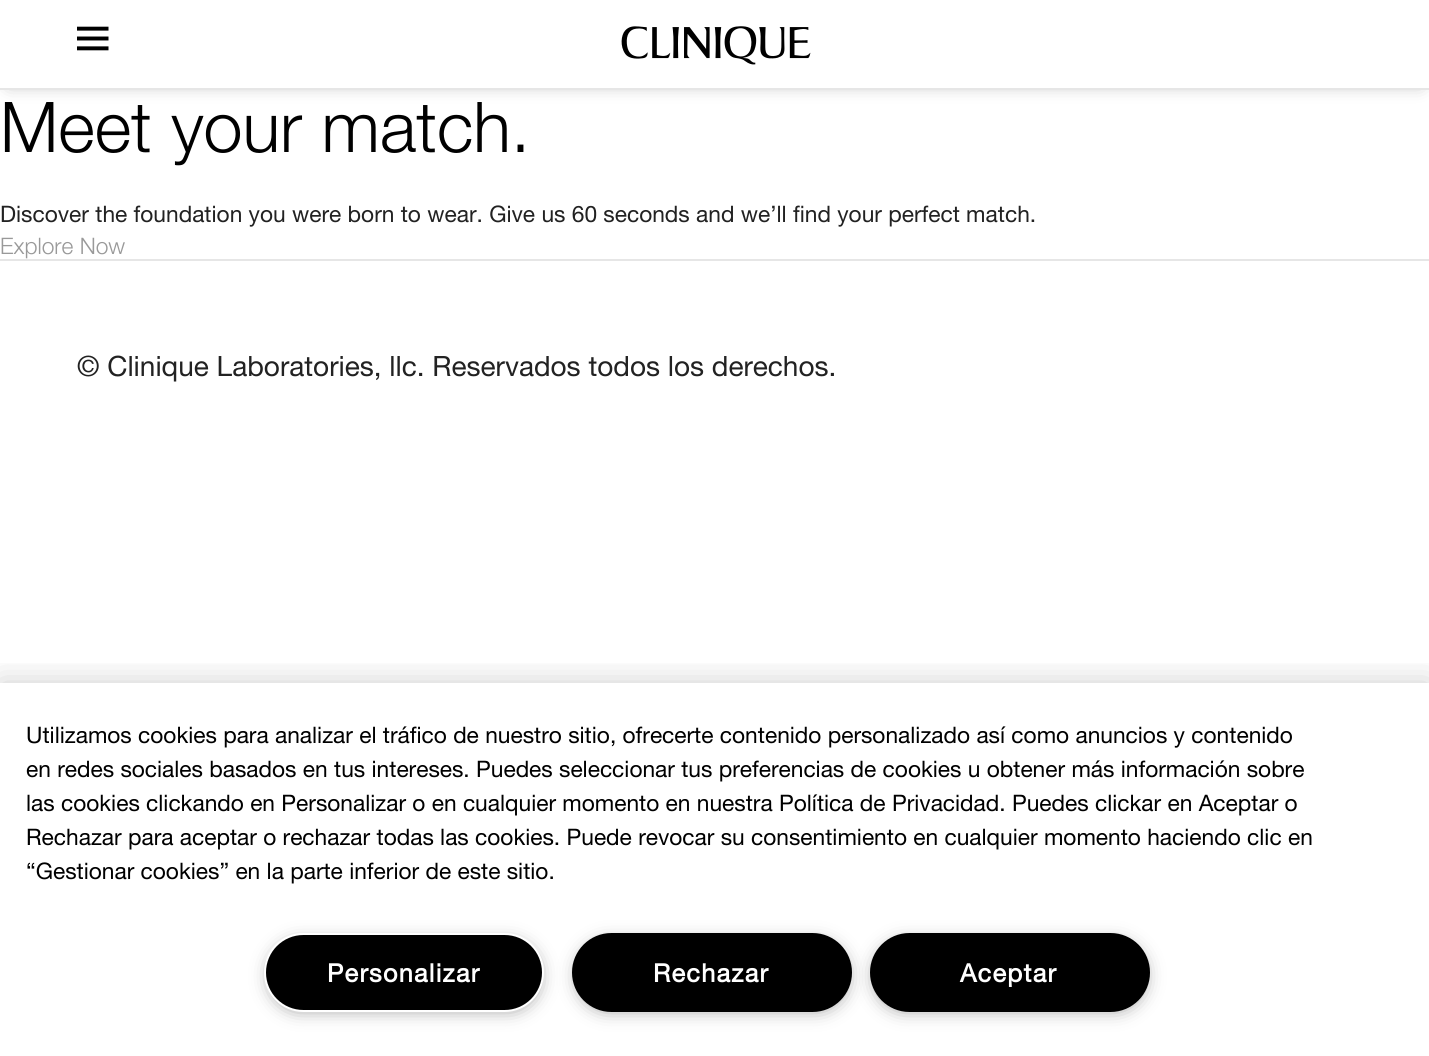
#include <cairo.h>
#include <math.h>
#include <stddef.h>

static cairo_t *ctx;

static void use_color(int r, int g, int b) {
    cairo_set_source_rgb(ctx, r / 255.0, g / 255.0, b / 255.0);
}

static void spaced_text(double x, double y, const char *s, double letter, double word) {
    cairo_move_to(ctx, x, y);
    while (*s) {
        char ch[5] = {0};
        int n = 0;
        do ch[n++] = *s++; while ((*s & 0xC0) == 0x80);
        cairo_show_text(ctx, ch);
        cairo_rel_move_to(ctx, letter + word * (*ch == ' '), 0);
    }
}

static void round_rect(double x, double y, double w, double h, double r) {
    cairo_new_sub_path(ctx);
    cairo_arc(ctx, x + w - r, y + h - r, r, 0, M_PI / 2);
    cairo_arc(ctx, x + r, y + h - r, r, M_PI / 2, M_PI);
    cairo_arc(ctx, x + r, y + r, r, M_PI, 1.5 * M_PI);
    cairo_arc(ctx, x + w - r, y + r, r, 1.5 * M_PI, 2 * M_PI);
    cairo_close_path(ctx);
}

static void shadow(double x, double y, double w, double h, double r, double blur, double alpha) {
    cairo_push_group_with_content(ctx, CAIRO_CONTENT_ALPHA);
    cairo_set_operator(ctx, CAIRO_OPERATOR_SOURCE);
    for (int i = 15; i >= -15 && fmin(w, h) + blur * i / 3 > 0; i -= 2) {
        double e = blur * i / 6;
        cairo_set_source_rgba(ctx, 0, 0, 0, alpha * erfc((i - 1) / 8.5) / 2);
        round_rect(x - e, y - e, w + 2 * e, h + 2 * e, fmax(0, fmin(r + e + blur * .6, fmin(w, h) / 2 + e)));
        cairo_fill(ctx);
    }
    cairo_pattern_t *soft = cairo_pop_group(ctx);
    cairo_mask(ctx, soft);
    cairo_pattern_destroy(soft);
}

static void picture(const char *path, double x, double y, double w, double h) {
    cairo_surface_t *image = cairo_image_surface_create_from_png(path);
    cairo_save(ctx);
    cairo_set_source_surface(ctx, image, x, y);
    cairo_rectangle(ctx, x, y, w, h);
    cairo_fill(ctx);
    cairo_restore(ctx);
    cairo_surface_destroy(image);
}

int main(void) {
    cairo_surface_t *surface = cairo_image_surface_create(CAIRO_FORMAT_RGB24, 1429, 1056);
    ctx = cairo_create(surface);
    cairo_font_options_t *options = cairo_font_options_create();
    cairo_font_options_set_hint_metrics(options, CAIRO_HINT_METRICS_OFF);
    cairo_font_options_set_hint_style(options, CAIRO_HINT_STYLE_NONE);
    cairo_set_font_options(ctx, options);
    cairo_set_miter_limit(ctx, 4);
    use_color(255, 255, 255);
    cairo_paint(ctx);
    use_color(0, 0, 0);
    shadow(9, 14, 1412, 70, 0, 9, 0.3);
    use_color(255, 255, 255);
    cairo_rectangle(ctx, 0, 0, 1429, 88);
    cairo_fill(ctx);
    use_color(230, 230, 230);
    cairo_rectangle(ctx, 0, 88, 1429, 2);
    cairo_fill(ctx);
    picture("img1.png", 77, 26, 32, 25);
    picture("img2.png", 621, 26, 190, 39);
    cairo_select_font_face(ctx, "Helvetica Neue Light", CAIRO_FONT_SLANT_NORMAL, CAIRO_FONT_WEIGHT_NORMAL);
    cairo_set_font_size(ctx, 70);
    use_color(0, 0, 0);
    cairo_move_to(ctx, 0, 152);
    cairo_show_text(ctx, "Meet your match.");
    cairo_select_font_face(ctx, "Helvetica Neue", CAIRO_FONT_SLANT_NORMAL, CAIRO_FONT_WEIGHT_NORMAL);
    cairo_set_font_size(ctx, 22.75);
    use_color(34, 34, 34);
    cairo_move_to(ctx, 0, 222);
    cairo_show_text(ctx, "Discover the foundation you were born to wear. Give us 60 seconds and we’ll find your perfect match.");
    cairo_select_font_face(ctx, "Helvetica Neue Light", CAIRO_FONT_SLANT_NORMAL, CAIRO_FONT_WEIGHT_NORMAL);
    use_color(153, 153, 153);
    cairo_move_to(ctx, 0, 254);
    cairo_show_text(ctx, "Explore Now");
    use_color(230, 230, 230);
    cairo_rectangle(ctx, 0, 259, 1429, 2);
    cairo_fill(ctx);
    cairo_select_font_face(ctx, "Helvetica Neue", CAIRO_FONT_SLANT_NORMAL, CAIRO_FONT_WEIGHT_NORMAL);
    cairo_set_font_size(ctx, 28);
    use_color(34, 34, 34);
    cairo_move_to(ctx, 77, 376);
    cairo_show_text(ctx, "© Clinique Laboratories, llc. Reservados todos los derechos.");
    cairo_save(ctx);
    cairo_rectangle(ctx, 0, 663, 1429, 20);
    cairo_clip(ctx);
    use_color(0, 0, 0);
    shadow(0, 683, 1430, 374, 0, 16, 0.2);
    cairo_restore(ctx);
    cairo_set_font_size(ctx, 22.75);
    use_color(0, 0, 0);
    cairo_move_to(ctx, 26, 743);
    cairo_show_text(ctx, "Utilizamos cookies para analizar el tráfico de nuestro sitio, ofrecerte contenido personalizado así como anuncios y contenido");
    cairo_move_to(ctx, 26, 777);
    cairo_show_text(ctx, "en redes sociales basados en tus intereses. Puedes seleccionar tus preferencias de cookies u obtener más información sobre");
    cairo_move_to(ctx, 26, 811);
    cairo_show_text(ctx, "las cookies clickando en Personalizar o en cualquier momento en nuestra Política de Privacidad. Puedes clickar en Aceptar o");
    cairo_move_to(ctx, 26, 845);
    cairo_show_text(ctx, "Rechazar para aceptar o rechazar todas las cookies. Puede revocar su consentimiento en cualquier momento haciendo clic en");
    cairo_move_to(ctx, 26, 879);
    cairo_show_text(ctx, "“Gestionar cookies” en la parte inferior de este sitio.");
    use_color(153, 153, 153);
    shadow(270, 942, 269, 68, 34, 9, 1);
    use_color(0, 0, 0);
    round_rect(265, 934, 278, 77, 38.5);
    cairo_fill_preserve(ctx);
    use_color(255, 255, 255);
    cairo_stroke(ctx);
    cairo_select_font_face(ctx, "Helvetica Neue", CAIRO_FONT_SLANT_NORMAL, CAIRO_FONT_WEIGHT_BOLD);
    cairo_set_font_size(ctx, 25.25);
    spaced_text(327, 982, "Personalizar", 1.25, 0);
    use_color(153, 153, 153);
    shadow(875, 942, 270, 68, 34, 9, 1);
    use_color(0, 0, 0);
    round_rect(871, 934, 278, 77, 38.5);
    cairo_fill_preserve(ctx);
    cairo_stroke(ctx);
    use_color(153, 153, 153);
    shadow(578, 942, 269, 68, 34, 9, 1);
    use_color(0, 0, 0);
    round_rect(573, 934, 278, 77, 38.5);
    cairo_fill_preserve(ctx);
    cairo_stroke(ctx);
    use_color(255, 255, 255);
    spaced_text(653, 982, "Rechazar", 1.25, 0);
    spaced_text(960, 982, "Aceptar", 1.25, 0);
    cairo_surface_write_to_png(surface, "result.png");
    cairo_font_options_destroy(options);
    cairo_destroy(ctx);
    cairo_surface_destroy(surface);
    return 0;
}
